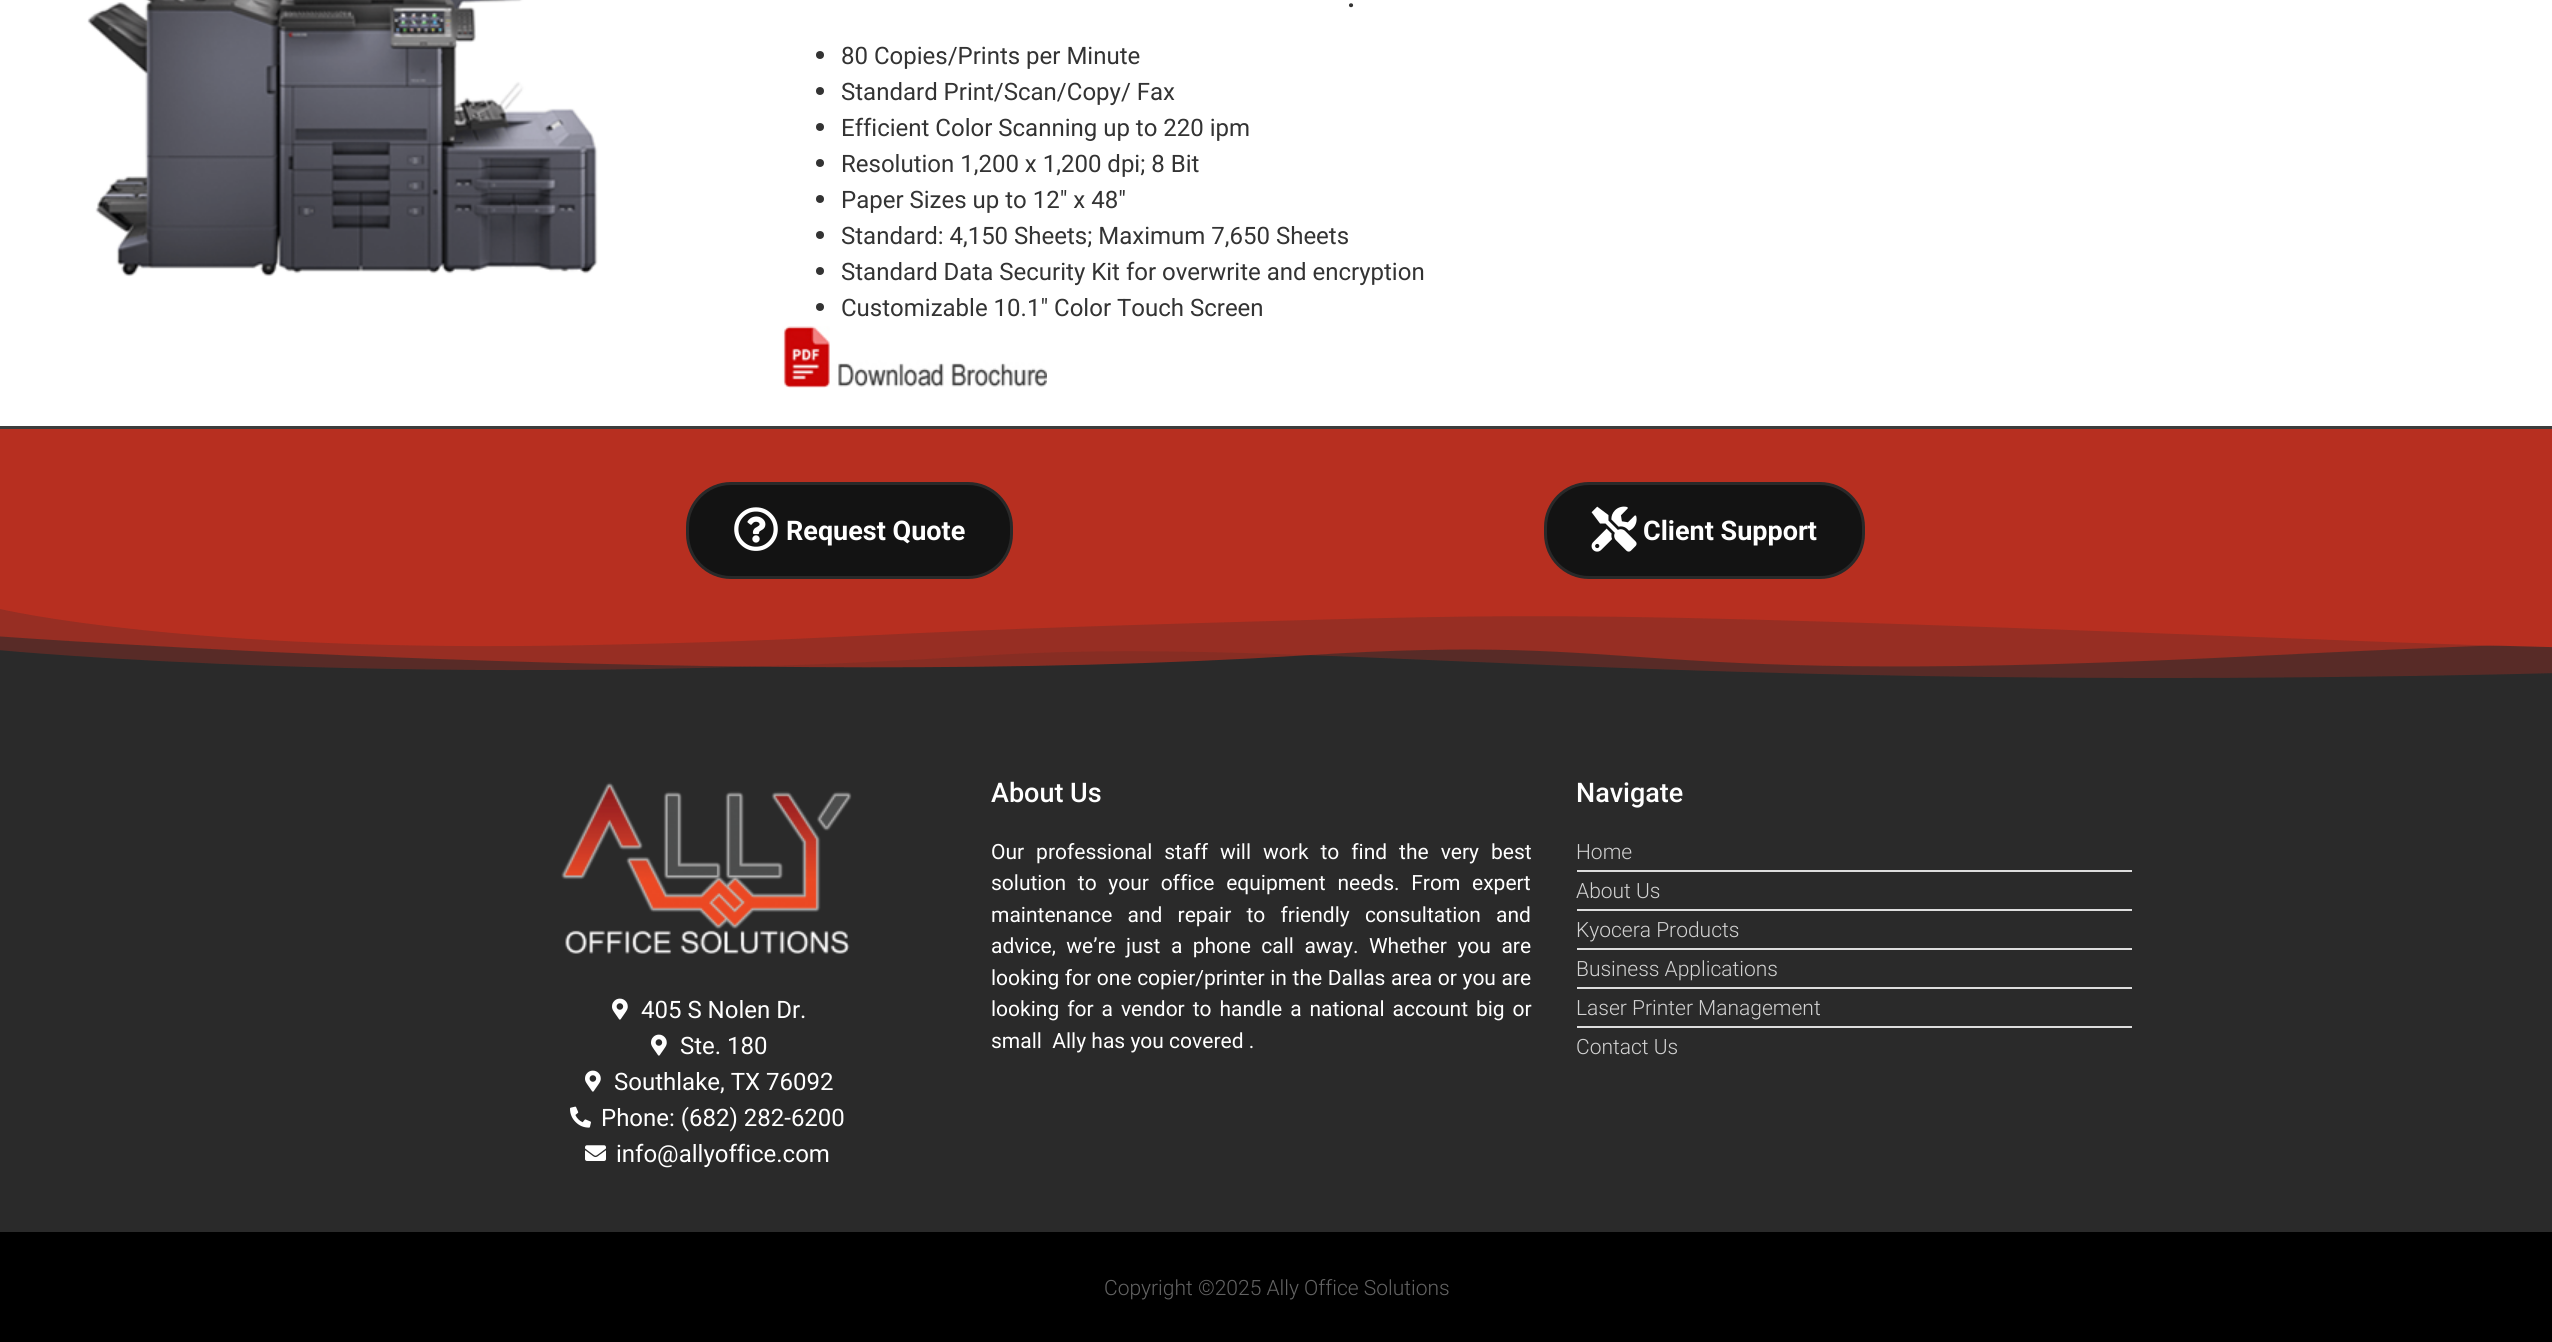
#include <cairo.h>
#include <math.h>
#include <stddef.h>

static cairo_t *ctx;

static void use_color(int r, int g, int b) {
    cairo_set_source_rgb(ctx, r / 255.0, g / 255.0, b / 255.0);
}

static void spaced_text(double x, double y, const char *s, double letter, double word) {
    cairo_move_to(ctx, x, y);
    while (*s) {
        char ch[5] = {0};
        int n = 0;
        do ch[n++] = *s++; while ((*s & 0xC0) == 0x80);
        cairo_show_text(ctx, ch);
        cairo_rel_move_to(ctx, letter + word * (*ch == ' '), 0);
    }
}

static void round_rect(double x, double y, double w, double h, double r) {
    cairo_new_sub_path(ctx);
    cairo_arc(ctx, x + w - r, y + h - r, r, 0, M_PI / 2);
    cairo_arc(ctx, x + r, y + h - r, r, M_PI / 2, M_PI);
    cairo_arc(ctx, x + r, y + r, r, M_PI, 1.5 * M_PI);
    cairo_arc(ctx, x + w - r, y + r, r, 1.5 * M_PI, 2 * M_PI);
    cairo_close_path(ctx);
}

static void picture(const char *path, double x, double y, double w, double h) {
    cairo_surface_t *image = cairo_image_surface_create_from_png(path);
    cairo_save(ctx);
    cairo_set_source_surface(ctx, image, x, y);
    cairo_rectangle(ctx, x, y, w, h);
    cairo_fill(ctx);
    cairo_restore(ctx);
    cairo_surface_destroy(image);
}

int main(void) {
    cairo_surface_t *surface = cairo_image_surface_create(CAIRO_FORMAT_RGB24, 2552, 1342);
    ctx = cairo_create(surface);
    cairo_font_options_t *options = cairo_font_options_create();
    cairo_font_options_set_hint_metrics(options, CAIRO_HINT_METRICS_OFF);
    cairo_font_options_set_hint_style(options, CAIRO_HINT_STYLE_NONE);
    cairo_set_font_options(ctx, options);
    cairo_set_miter_limit(ctx, 4);
    use_color(255, 255, 255);
    cairo_paint(ctx);
    picture("img1.png", 87, 0, 511, 277);
    cairo_select_font_face(ctx, "Roboto Medium", CAIRO_FONT_SLANT_NORMAL, CAIRO_FONT_WEIGHT_NORMAL);
    cairo_set_font_size(ctx, 30);
    use_color(51, 51, 51);
    cairo_move_to(ctx, 1347, 7);
    cairo_show_text(ctx, ".");
    cairo_new_path(ctx);
    cairo_arc(ctx, 820, 55, 4, 0, 2 * M_PI);
    cairo_fill(ctx);
    cairo_select_font_face(ctx, "Roboto", CAIRO_FONT_SLANT_NORMAL, CAIRO_FONT_WEIGHT_NORMAL);
    cairo_set_font_size(ctx, 24);
    cairo_move_to(ctx, 841, 64);
    cairo_show_text(ctx, "80 Copies/Prints per Minute");
    cairo_new_path(ctx);
    cairo_arc(ctx, 820, 91, 4, 0, 2 * M_PI);
    cairo_fill(ctx);
    cairo_move_to(ctx, 841, 100);
    cairo_show_text(ctx, "Standard Print/Scan/Copy/ Fax");
    cairo_new_path(ctx);
    cairo_arc(ctx, 820, 127, 4, 0, 2 * M_PI);
    cairo_fill(ctx);
    cairo_move_to(ctx, 841, 136);
    cairo_show_text(ctx, "Efficient Color Scanning up to 220 ipm");
    cairo_new_path(ctx);
    cairo_arc(ctx, 820, 163, 4, 0, 2 * M_PI);
    cairo_fill(ctx);
    cairo_move_to(ctx, 841, 172);
    cairo_show_text(ctx, "Resolution 1,200 x 1,200 dpi; 8 Bit");
    cairo_new_path(ctx);
    cairo_arc(ctx, 820, 199, 4, 0, 2 * M_PI);
    cairo_fill(ctx);
    cairo_move_to(ctx, 841, 208);
    cairo_show_text(ctx, "Paper Sizes up to 12\" x 48\"");
    cairo_new_path(ctx);
    cairo_arc(ctx, 820, 235, 4, 0, 2 * M_PI);
    cairo_fill(ctx);
    cairo_move_to(ctx, 841, 244);
    cairo_show_text(ctx, "Standard: 4,150 Sheets; Maximum 7,650 Sheets");
    cairo_new_path(ctx);
    cairo_arc(ctx, 820, 271, 4, 0, 2 * M_PI);
    cairo_fill(ctx);
    cairo_move_to(ctx, 841, 280);
    cairo_show_text(ctx, "Standard Data Security Kit for overwrite and encryption");
    cairo_new_path(ctx);
    cairo_arc(ctx, 820, 307, 4, 0, 2 * M_PI);
    cairo_fill(ctx);
    cairo_move_to(ctx, 841, 316);
    cairo_show_text(ctx, "Customizable 10.1\" Color Touch Screen");
    picture("img2.png", 782, 326, 265, 62);
    use_color(183, 47, 32);
    cairo_rectangle(ctx, 0, 429, 2552, 180);
    cairo_fill(ctx);
    use_color(60, 60, 60);
    cairo_rectangle(ctx, 0, 426, 2552, 3);
    cairo_fill(ctx);
    use_color(19, 19, 19);
    round_rect(687.5, 483.5, 324, 94, 43.5);
    cairo_fill_preserve(ctx);
    use_color(41, 41, 41);
    cairo_set_line_width(ctx, 3);
    cairo_stroke(ctx);
    picture("img3.png", 734, 507, 44, 44);
    cairo_select_font_face(ctx, "Roboto", CAIRO_FONT_SLANT_NORMAL, CAIRO_FONT_WEIGHT_BOLD);
    cairo_set_font_size(ctx, 27);
    use_color(255, 255, 255);
    cairo_move_to(ctx, 786, 540);
    cairo_show_text(ctx, "Request Quote");
    use_color(19, 19, 19);
    round_rect(1545.5, 483.5, 318, 94, 43.5);
    cairo_fill_preserve(ctx);
    use_color(41, 41, 41);
    cairo_stroke(ctx);
    picture("img4.png", 1591, 506, 46, 46);
    use_color(255, 255, 255);
    cairo_move_to(ctx, 1643, 540);
    cairo_show_text(ctx, "Client Support");
    use_color(42, 42, 42);
    cairo_rectangle(ctx, 0, 609, 2552, 623);
    cairo_fill(ctx);
    picture("img5.png", 0, 609, 2552, 69);
    cairo_select_font_face(ctx, "Roboto Medium", CAIRO_FONT_SLANT_NORMAL, CAIRO_FONT_WEIGHT_NORMAL);
    use_color(255, 255, 255);
    cairo_move_to(ctx, 991, 802);
    cairo_show_text(ctx, "About Us");
    cairo_select_font_face(ctx, "Roboto", CAIRO_FONT_SLANT_NORMAL, CAIRO_FONT_WEIGHT_NORMAL);
    cairo_set_font_size(ctx, 21);
    spaced_text(991, 859, "Our professional staff will work to find the very best", 0, 6.75);
    spaced_text(991, 890, "solution to your office equipment needs. From expert", 0, 6.5);
    spaced_text(991, 922, "maintenance and repair to friendly consultation and", 0, 10);
    spaced_text(991, 953, "advice, we’re just a phone call away. Whether you are", 0, 5.25);
    spaced_text(991, 985, "looking for one copier/printer in the Dallas area or you are", 0, 0.4);
    spaced_text(991, 1016, "looking for a vendor to handle a national account big or", 0, 2.75);
    cairo_move_to(ctx, 991, 1048);
    cairo_show_text(ctx, "small  Ally has you covered .");
    cairo_select_font_face(ctx, "Roboto Medium", CAIRO_FONT_SLANT_NORMAL, CAIRO_FONT_WEIGHT_NORMAL);
    cairo_set_font_size(ctx, 27);
    cairo_move_to(ctx, 1576, 802);
    cairo_show_text(ctx, "Navigate");
    cairo_select_font_face(ctx, "Roboto Light", CAIRO_FONT_SLANT_NORMAL, CAIRO_FONT_WEIGHT_NORMAL);
    cairo_set_font_size(ctx, 21);
    use_color(210, 210, 210);
    cairo_move_to(ctx, 1576, 859);
    cairo_show_text(ctx, "Home");
    use_color(221, 221, 221);
    cairo_rectangle(ctx, 1577, 870, 555, 2);
    cairo_fill(ctx);
    use_color(210, 210, 210);
    cairo_move_to(ctx, 1576, 898);
    cairo_show_text(ctx, "About Us");
    use_color(221, 221, 221);
    cairo_rectangle(ctx, 1577, 909, 555, 2);
    cairo_fill(ctx);
    use_color(210, 210, 210);
    cairo_move_to(ctx, 1576, 937);
    cairo_show_text(ctx, "Kyocera Products");
    use_color(221, 221, 221);
    cairo_rectangle(ctx, 1577, 948, 555, 2);
    cairo_fill(ctx);
    use_color(210, 210, 210);
    cairo_move_to(ctx, 1576, 976);
    cairo_show_text(ctx, "Business Applications");
    use_color(221, 221, 221);
    cairo_rectangle(ctx, 1577, 987, 555, 2);
    cairo_fill(ctx);
    use_color(210, 210, 210);
    cairo_move_to(ctx, 1576, 1015);
    cairo_show_text(ctx, "Laser Printer Management");
    use_color(221, 221, 221);
    cairo_rectangle(ctx, 1577, 1026, 555, 2);
    cairo_fill(ctx);
    use_color(210, 210, 210);
    cairo_move_to(ctx, 1576, 1054);
    cairo_show_text(ctx, "Contact Us");
    picture("img6.png", 561, 782, 291, 172);
    picture("img7.png", 612, 998, 16, 22);
    cairo_select_font_face(ctx, "Roboto", CAIRO_FONT_SLANT_NORMAL, CAIRO_FONT_WEIGHT_NORMAL);
    cairo_set_font_size(ctx, 24);
    use_color(255, 255, 255);
    cairo_move_to(ctx, 641, 1018);
    cairo_show_text(ctx, "405 S Nolen Dr.");
    picture("img7.png", 651, 1034, 16, 22);
    cairo_move_to(ctx, 680, 1054);
    cairo_show_text(ctx, "Ste. 180");
    picture("img7.png", 585, 1070, 16, 22);
    cairo_move_to(ctx, 614, 1090);
    cairo_show_text(ctx, "Southlake, TX 76092");
    picture("img8.png", 570, 1106, 21, 22);
    cairo_move_to(ctx, 601, 1126);
    cairo_show_text(ctx, "Phone: (682) 282-6200");
    picture("img9.png", 585, 1145, 21, 16);
    cairo_move_to(ctx, 616, 1162);
    cairo_show_text(ctx, "info@allyoffice.com");
    use_color(0, 0, 0);
    cairo_rectangle(ctx, 0, 1232, 2552, 110);
    cairo_fill(ctx);
    cairo_select_font_face(ctx, "Roboto Light", CAIRO_FONT_SLANT_NORMAL, CAIRO_FONT_WEIGHT_NORMAL);
    cairo_set_font_size(ctx, 21);
    use_color(99, 99, 99);
    cairo_move_to(ctx, 1104, 1295);
    cairo_show_text(ctx, "Copyright ©2025 Ally Office Solutions");
    cairo_surface_write_to_png(surface, "result.png");
    cairo_font_options_destroy(options);
    cairo_destroy(ctx);
    cairo_surface_destroy(surface);
    return 0;
}
